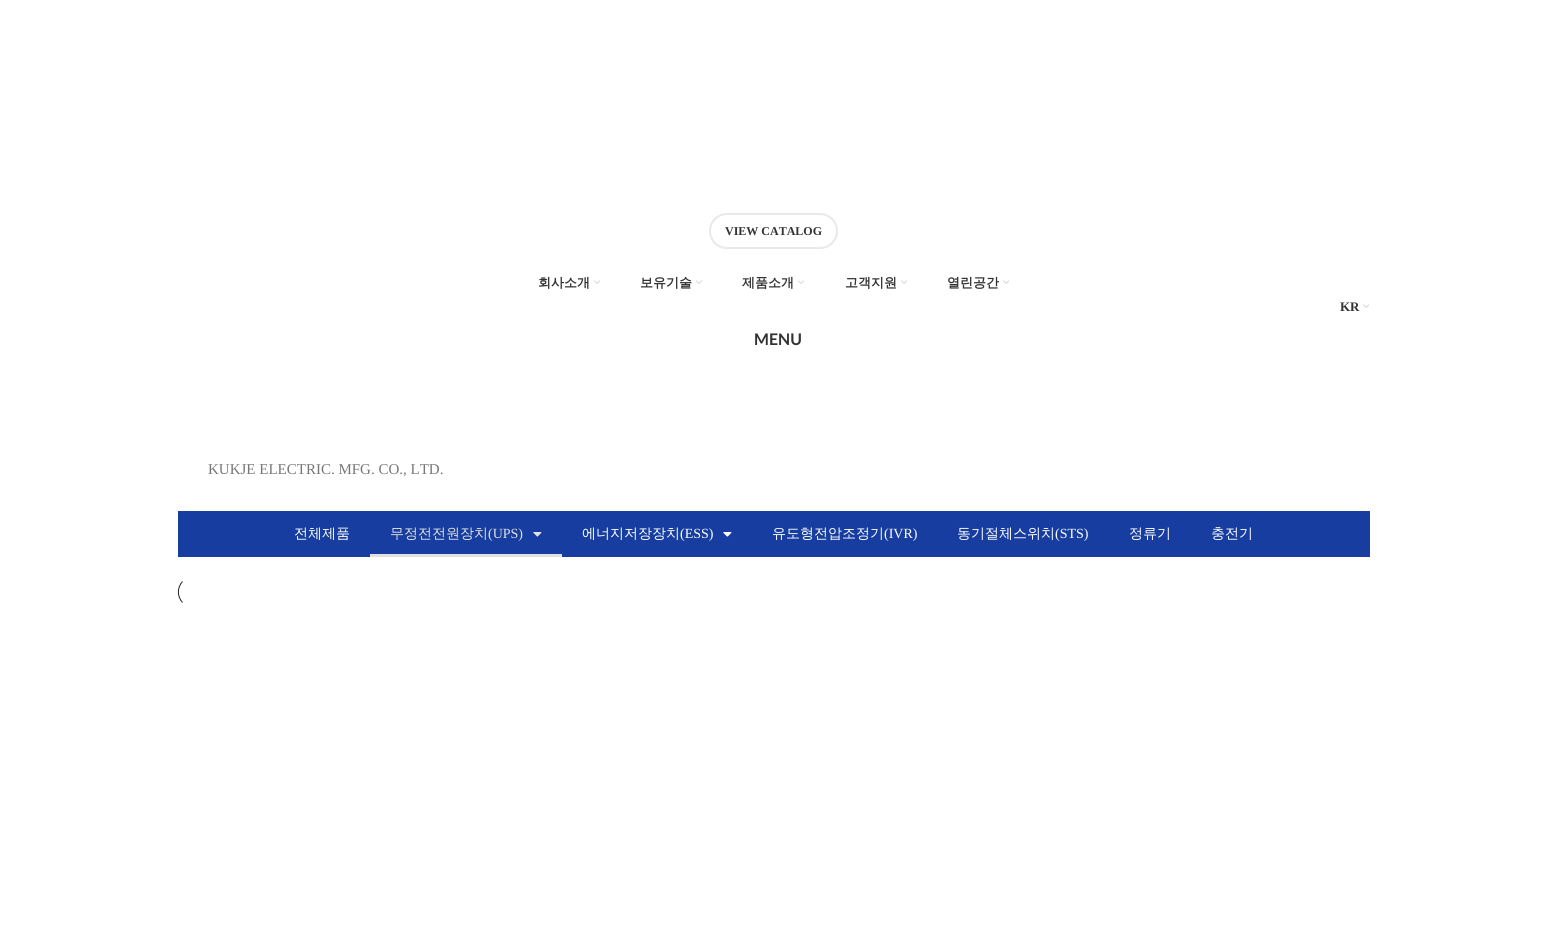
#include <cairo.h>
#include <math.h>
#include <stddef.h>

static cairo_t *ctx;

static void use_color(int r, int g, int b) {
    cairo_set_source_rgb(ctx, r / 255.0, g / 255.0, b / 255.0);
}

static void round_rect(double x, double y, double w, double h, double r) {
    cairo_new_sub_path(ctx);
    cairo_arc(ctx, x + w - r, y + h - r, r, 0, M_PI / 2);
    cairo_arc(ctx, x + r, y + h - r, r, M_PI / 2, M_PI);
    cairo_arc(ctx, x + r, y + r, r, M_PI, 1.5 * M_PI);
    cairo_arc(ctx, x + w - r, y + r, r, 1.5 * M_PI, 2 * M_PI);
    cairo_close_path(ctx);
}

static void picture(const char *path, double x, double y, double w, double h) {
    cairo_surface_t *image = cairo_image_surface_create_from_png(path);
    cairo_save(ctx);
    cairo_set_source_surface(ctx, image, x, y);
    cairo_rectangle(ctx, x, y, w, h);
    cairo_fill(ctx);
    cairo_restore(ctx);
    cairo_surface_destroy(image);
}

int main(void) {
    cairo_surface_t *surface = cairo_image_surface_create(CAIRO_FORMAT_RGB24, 1547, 928);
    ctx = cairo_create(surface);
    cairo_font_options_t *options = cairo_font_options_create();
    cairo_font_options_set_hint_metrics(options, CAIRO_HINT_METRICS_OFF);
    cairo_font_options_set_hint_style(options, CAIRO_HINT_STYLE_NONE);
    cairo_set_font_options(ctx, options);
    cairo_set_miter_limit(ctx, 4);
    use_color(255, 255, 255);
    cairo_paint(ctx);
    round_rect(710, 214, 127, 34, 17);
    use_color(233, 233, 233);
    cairo_stroke(ctx);
    cairo_select_font_face(ctx, "Liberation Serif", CAIRO_FONT_SLANT_NORMAL, CAIRO_FONT_WEIGHT_BOLD);
    cairo_set_font_size(ctx, 12);
    use_color(51, 51, 51);
    cairo_move_to(ctx, 725, 235);
    cairo_show_text(ctx, "VIEW CATALOG");
    cairo_select_font_face(ctx, "WenQuanYi Zen Hei", CAIRO_FONT_SLANT_NORMAL, CAIRO_FONT_WEIGHT_BOLD);
    cairo_set_font_size(ctx, 13);
    cairo_move_to(ctx, 538, 287);
    cairo_show_text(ctx, "회사소개");
    picture("img1.png", 594, 280, 6, 4);
    cairo_move_to(ctx, 640, 287);
    cairo_show_text(ctx, "보유기술");
    picture("img1.png", 696, 280, 6, 4);
    cairo_move_to(ctx, 742, 287);
    cairo_show_text(ctx, "제품소개");
    picture("img1.png", 798, 280, 6, 4);
    cairo_move_to(ctx, 845, 287);
    cairo_show_text(ctx, "고객지원");
    picture("img1.png", 901, 280, 6, 4);
    cairo_move_to(ctx, 947, 287);
    cairo_show_text(ctx, "열린공간");
    picture("img1.png", 1003, 280, 6, 4);
    cairo_select_font_face(ctx, "Liberation Serif", CAIRO_FONT_SLANT_NORMAL, CAIRO_FONT_WEIGHT_BOLD);
    cairo_move_to(ctx, 1340, 311);
    cairo_show_text(ctx, "KR");
    picture("img1.png", 1363, 304, 6, 4);
    cairo_select_font_face(ctx, "Lato", CAIRO_FONT_SLANT_NORMAL, CAIRO_FONT_WEIGHT_BOLD);
    cairo_set_font_size(ctx, 16);
    cairo_move_to(ctx, 754, 345);
    cairo_show_text(ctx, "MENU");
    cairo_select_font_face(ctx, "Liberation Serif", CAIRO_FONT_SLANT_NORMAL, CAIRO_FONT_WEIGHT_NORMAL);
    cairo_set_font_size(ctx, 15);
    use_color(119, 119, 119);
    cairo_move_to(ctx, 208, 474);
    cairo_show_text(ctx, "KUKJE ELECTRIC. MFG. CO., LTD.");
    use_color(22, 61, 159);
    cairo_rectangle(ctx, 178, 511, 1192, 46);
    cairo_fill(ctx);
    cairo_select_font_face(ctx, "WenQuanYi Zen Hei Medium", CAIRO_FONT_SLANT_NORMAL, CAIRO_FONT_WEIGHT_NORMAL);
    cairo_set_font_size(ctx, 14);
    use_color(255, 255, 255);
    cairo_move_to(ctx, 294, 538);
    cairo_show_text(ctx, "전체제품");
    use_color(225, 225, 225);
    cairo_move_to(ctx, 390, 538);
    cairo_show_text(ctx, "무정전전원장치");
    cairo_select_font_face(ctx, "Liberation Serif", CAIRO_FONT_SLANT_NORMAL, CAIRO_FONT_WEIGHT_NORMAL);
    cairo_move_to(ctx, 488, 538);
    cairo_show_text(ctx, "(UPS)");
    picture("img2.png", 533, 532, 9, 5);
    cairo_rectangle(ctx, 370, 554, 192, 3);
    cairo_fill(ctx);
    cairo_select_font_face(ctx, "WenQuanYi Zen Hei Medium", CAIRO_FONT_SLANT_NORMAL, CAIRO_FONT_WEIGHT_NORMAL);
    use_color(255, 255, 255);
    cairo_move_to(ctx, 582, 538);
    cairo_show_text(ctx, "에너지저장장치");
    cairo_select_font_face(ctx, "Liberation Serif", CAIRO_FONT_SLANT_NORMAL, CAIRO_FONT_WEIGHT_NORMAL);
    cairo_move_to(ctx, 680, 538);
    cairo_show_text(ctx, "(ESS)");
    picture("img3.png", 723, 532, 9, 5);
    cairo_select_font_face(ctx, "WenQuanYi Zen Hei Medium", CAIRO_FONT_SLANT_NORMAL, CAIRO_FONT_WEIGHT_NORMAL);
    cairo_move_to(ctx, 772, 538);
    cairo_show_text(ctx, "유도형전압조정기");
    cairo_select_font_face(ctx, "Liberation Serif", CAIRO_FONT_SLANT_NORMAL, CAIRO_FONT_WEIGHT_NORMAL);
    cairo_move_to(ctx, 884, 538);
    cairo_show_text(ctx, "(IVR)");
    cairo_select_font_face(ctx, "WenQuanYi Zen Hei Medium", CAIRO_FONT_SLANT_NORMAL, CAIRO_FONT_WEIGHT_NORMAL);
    cairo_move_to(ctx, 957, 538);
    cairo_show_text(ctx, "동기절체스위치");
    cairo_select_font_face(ctx, "Liberation Serif", CAIRO_FONT_SLANT_NORMAL, CAIRO_FONT_WEIGHT_NORMAL);
    cairo_move_to(ctx, 1055, 538);
    cairo_show_text(ctx, "(STS)");
    cairo_select_font_face(ctx, "WenQuanYi Zen Hei Medium", CAIRO_FONT_SLANT_NORMAL, CAIRO_FONT_WEIGHT_NORMAL);
    cairo_move_to(ctx, 1129, 538);
    cairo_show_text(ctx, "정류기");
    cairo_move_to(ctx, 1211, 538);
    cairo_show_text(ctx, "충전기");
    cairo_new_path(ctx);
    cairo_move_to(ctx, 182.5, 602.5);
    cairo_curve_to(ctx, 177, 596.5, 177, 587.5, 182.5, 581.5);
    use_color(36, 36, 36);
    cairo_set_line_width(ctx, 1);
    cairo_stroke(ctx);
    cairo_surface_write_to_png(surface, "result.png");
    cairo_font_options_destroy(options);
    cairo_destroy(ctx);
    cairo_surface_destroy(surface);
    return 0;
}
